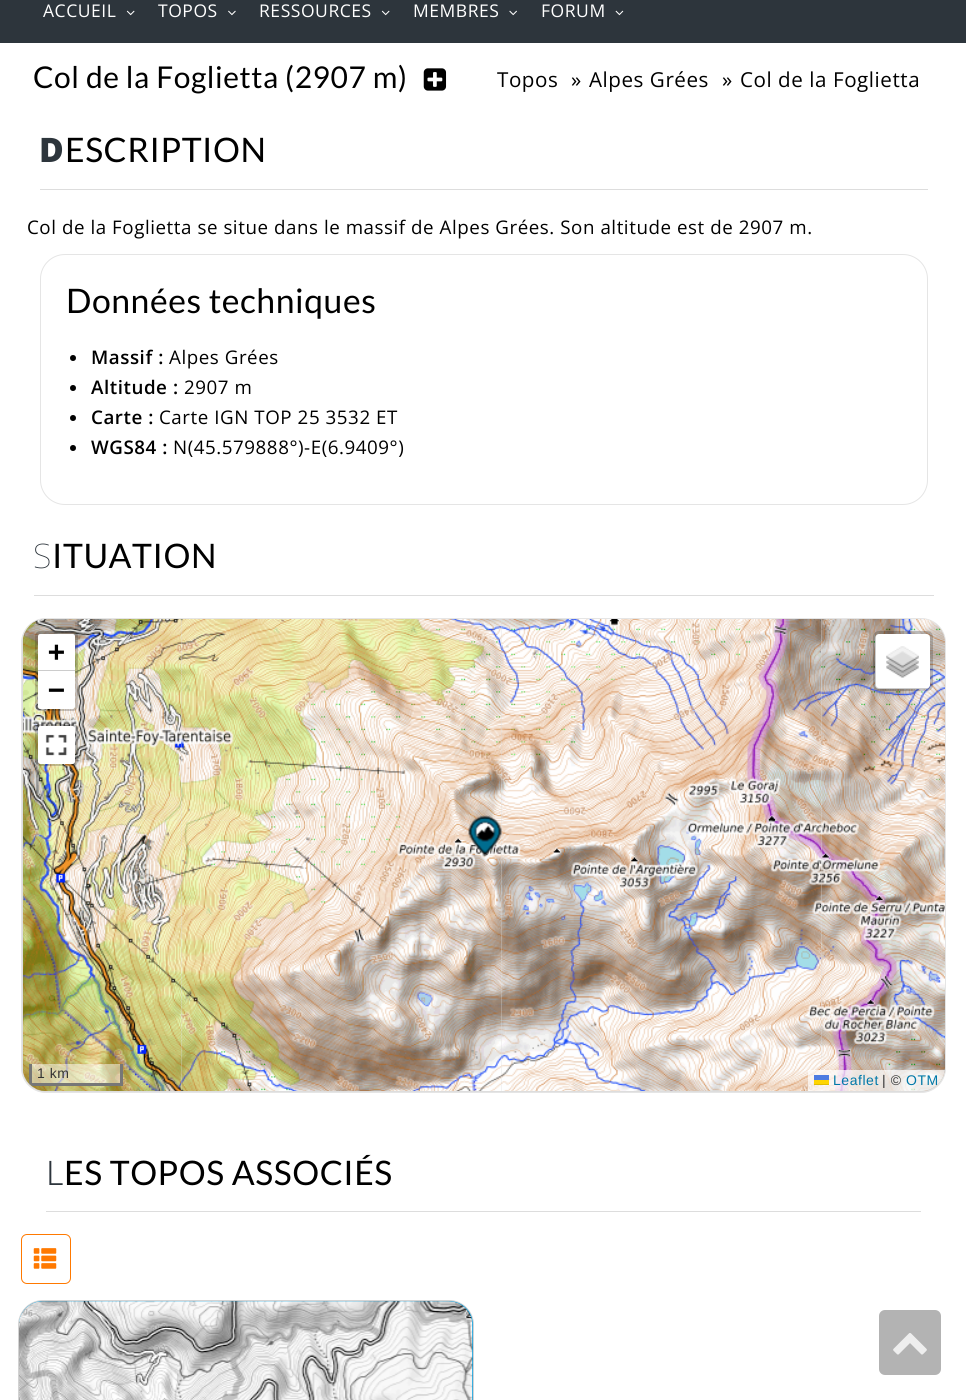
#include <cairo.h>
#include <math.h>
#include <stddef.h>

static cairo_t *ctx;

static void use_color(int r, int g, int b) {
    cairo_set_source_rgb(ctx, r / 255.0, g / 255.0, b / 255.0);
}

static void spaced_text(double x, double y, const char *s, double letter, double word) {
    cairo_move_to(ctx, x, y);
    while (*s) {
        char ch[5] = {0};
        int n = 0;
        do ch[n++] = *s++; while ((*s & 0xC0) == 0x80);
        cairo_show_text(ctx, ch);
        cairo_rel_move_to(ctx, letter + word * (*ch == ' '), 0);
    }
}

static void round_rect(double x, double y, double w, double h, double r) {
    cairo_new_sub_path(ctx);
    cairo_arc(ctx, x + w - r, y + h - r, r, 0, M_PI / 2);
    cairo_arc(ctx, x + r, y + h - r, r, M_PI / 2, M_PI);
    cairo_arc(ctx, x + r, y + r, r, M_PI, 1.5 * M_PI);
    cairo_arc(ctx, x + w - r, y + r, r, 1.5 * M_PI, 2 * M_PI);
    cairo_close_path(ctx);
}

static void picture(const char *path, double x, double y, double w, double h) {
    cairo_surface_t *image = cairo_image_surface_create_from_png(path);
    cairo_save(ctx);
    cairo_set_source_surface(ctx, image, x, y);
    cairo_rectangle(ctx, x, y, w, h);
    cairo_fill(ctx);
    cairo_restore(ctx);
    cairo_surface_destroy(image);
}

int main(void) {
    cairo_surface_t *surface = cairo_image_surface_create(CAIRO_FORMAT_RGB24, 966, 1400);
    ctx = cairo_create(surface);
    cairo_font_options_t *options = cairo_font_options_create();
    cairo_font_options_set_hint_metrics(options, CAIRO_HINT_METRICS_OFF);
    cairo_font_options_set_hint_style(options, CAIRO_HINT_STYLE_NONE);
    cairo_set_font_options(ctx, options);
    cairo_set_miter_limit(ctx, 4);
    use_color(255, 255, 255);
    cairo_paint(ctx);
    use_color(45, 53, 60);
    cairo_rectangle(ctx, 0, 0, 966, 43);
    cairo_fill(ctx);
    cairo_select_font_face(ctx, "Open Sans", CAIRO_FONT_SLANT_NORMAL, CAIRO_FONT_WEIGHT_NORMAL);
    cairo_set_font_size(ctx, 17.5);
    use_color(255, 255, 255);
    spaced_text(43, 17, "ACCUEIL", 0.55, 0);
    picture("img1.png", 126, 10, 9, 6);
    spaced_text(158, 17, "TOPOS", 0.55, 0);
    picture("img2.png", 228, 10, 8, 6);
    spaced_text(259, 17, "RESSOURCES", 0.55, 0);
    picture("img1.png", 381, 10, 9, 6);
    spaced_text(413, 17, "MEMBRES", 0.55, 0);
    picture("img3.png", 509, 10, 8, 6);
    spaced_text(541, 17, "FORUM", 0.55, 0);
    picture("img4.png", 615, 10, 9, 6);
    cairo_select_font_face(ctx, "Lato", CAIRO_FONT_SLANT_NORMAL, CAIRO_FONT_WEIGHT_NORMAL);
    cairo_set_font_size(ctx, 30);
    use_color(0, 0, 0);
    spaced_text(33, 88, "Col de la Foglietta (2907 m)", 0.55, 0);
    picture("img5.png", 423, 68, 24, 23);
    cairo_select_font_face(ctx, "Open Sans", CAIRO_FONT_SLANT_NORMAL, CAIRO_FONT_WEIGHT_NORMAL);
    cairo_set_font_size(ctx, 20.6);
    spaced_text(497, 87, "Topos", 0.55, 0);
    spaced_text(571, 87, "»", 0.55, 0);
    spaced_text(589, 87, "Alpes Grées", 0.55, 0);
    spaced_text(722, 87, "»", 0.55, 0);
    spaced_text(740, 87, "Col de la Foglietta", 0.55, 0);
    use_color(221, 221, 221);
    cairo_rectangle(ctx, 40, 189, 888, 1);
    cairo_fill(ctx);
    cairo_select_font_face(ctx, "Noto Sans Black", CAIRO_FONT_SLANT_NORMAL, CAIRO_FONT_WEIGHT_NORMAL);
    cairo_set_font_size(ctx, 33.75);
    use_color(45, 53, 60);
    spaced_text(39, 162, "D", 0.55, 0);
    cairo_select_font_face(ctx, "Lato", CAIRO_FONT_SLANT_NORMAL, CAIRO_FONT_WEIGHT_NORMAL);
    use_color(0, 0, 0);
    spaced_text(65, 162, "ESCRIPTION", 0.55, 0);
    cairo_select_font_face(ctx, "Open Sans", CAIRO_FONT_SLANT_NORMAL, CAIRO_FONT_WEIGHT_NORMAL);
    cairo_set_font_size(ctx, 18.75);
    spaced_text(27, 234, "Col de la Foglietta se situe dans le massif de Alpes Grées. Son altitude est de 2907 m.", 0.55, 0);
    round_rect(40.5, 254.5, 887, 250, 24.5);
    use_color(229, 229, 229);
    cairo_set_line_width(ctx, 1);
    cairo_stroke(ctx);
    cairo_select_font_face(ctx, "Lato", CAIRO_FONT_SLANT_NORMAL, CAIRO_FONT_WEIGHT_NORMAL);
    cairo_set_font_size(ctx, 33.75);
    use_color(0, 0, 0);
    spaced_text(66, 313, "Données techniques", 0.55, 0);
    cairo_new_path(ctx);
    cairo_arc(ctx, 73, 358, 3, 0, 2 * M_PI);
    cairo_fill(ctx);
    cairo_select_font_face(ctx, "Open Sans SemiBold", CAIRO_FONT_SLANT_NORMAL, CAIRO_FONT_WEIGHT_NORMAL);
    cairo_set_font_size(ctx, 18.75);
    spaced_text(91, 364, "Massif :", 0.55, 0);
    cairo_select_font_face(ctx, "Open Sans", CAIRO_FONT_SLANT_NORMAL, CAIRO_FONT_WEIGHT_NORMAL);
    spaced_text(169, 364, "Alpes Grées", 0.55, 0);
    cairo_new_path(ctx);
    cairo_arc(ctx, 73, 388, 3, 0, 2 * M_PI);
    cairo_fill(ctx);
    cairo_select_font_face(ctx, "Open Sans SemiBold", CAIRO_FONT_SLANT_NORMAL, CAIRO_FONT_WEIGHT_NORMAL);
    spaced_text(91, 394, "Altitude :", 0.55, 0);
    cairo_select_font_face(ctx, "Open Sans", CAIRO_FONT_SLANT_NORMAL, CAIRO_FONT_WEIGHT_NORMAL);
    spaced_text(184, 394, "2907 m", 0.55, 0);
    cairo_new_path(ctx);
    cairo_arc(ctx, 73, 418, 3, 0, 2 * M_PI);
    cairo_fill(ctx);
    cairo_select_font_face(ctx, "Open Sans SemiBold", CAIRO_FONT_SLANT_NORMAL, CAIRO_FONT_WEIGHT_NORMAL);
    spaced_text(91, 424, "Carte :", 0.55, 0);
    cairo_select_font_face(ctx, "Open Sans", CAIRO_FONT_SLANT_NORMAL, CAIRO_FONT_WEIGHT_NORMAL);
    spaced_text(159, 424, "Carte IGN TOP 25 3532 ET", 0.55, 0);
    cairo_new_path(ctx);
    cairo_arc(ctx, 73, 448, 3, 0, 2 * M_PI);
    cairo_fill(ctx);
    cairo_select_font_face(ctx, "Open Sans SemiBold", CAIRO_FONT_SLANT_NORMAL, CAIRO_FONT_WEIGHT_NORMAL);
    spaced_text(91, 454, "WGS84 :", 0.55, 0);
    cairo_select_font_face(ctx, "Open Sans", CAIRO_FONT_SLANT_NORMAL, CAIRO_FONT_WEIGHT_NORMAL);
    spaced_text(173, 454, "N(45.579888°)-E(6.9409°)", 0.55, 0);
    use_color(221, 221, 221);
    cairo_rectangle(ctx, 34, 595, 900, 1);
    cairo_fill(ctx);
    cairo_select_font_face(ctx, "Noto Sans Thin", CAIRO_FONT_SLANT_NORMAL, CAIRO_FONT_WEIGHT_NORMAL);
    cairo_set_font_size(ctx, 33.75);
    use_color(45, 53, 60);
    spaced_text(33, 568, "S", 0.55, 0);
    cairo_select_font_face(ctx, "Lato", CAIRO_FONT_SLANT_NORMAL, CAIRO_FONT_WEIGHT_NORMAL);
    use_color(0, 0, 0);
    spaced_text(52, 568, "ITUATION", 0.55, 0);
    use_color(221, 221, 221);
    round_rect(21.5, 618.5, 924, 474, 24.5);
    cairo_fill_preserve(ctx);
    use_color(229, 229, 229);
    cairo_stroke(ctx);
    picture("img6.png", 23, 619, 158, 201);
    picture("img7.png", 181, 619, 320, 201);
    picture("img8.png", 501, 619, 320, 201);
    picture("img9.png", 821, 619, 124, 201);
    picture("img10.png", 23, 819, 158, 272);
    picture("img11.png", 181, 819, 320, 272);
    picture("img12.png", 501, 819, 320, 272);
    picture("img13.png", 821, 819, 124, 272);
    picture("img14.png", 468, 815, 34, 41);
    round_rect(36.5, 632.5, 40, 77, 3.5);
    cairo_set_source_rgba(ctx, 0, 0, 0, 0.2);
    cairo_set_line_width(ctx, 3);
    cairo_stroke(ctx);
    use_color(255, 255, 255);
    cairo_new_path(ctx);
    cairo_move_to(ctx, 40.5, 634);
    cairo_line_to(ctx, 72.5, 634);
    cairo_curve_to(ctx, 74, 634, 75, 635, 75, 636.5);
    cairo_line_to(ctx, 75, 671);
    cairo_line_to(ctx, 38, 671);
    cairo_line_to(ctx, 38, 636.5);
    cairo_curve_to(ctx, 38, 635, 39, 634, 40.5, 634);
    cairo_close_path(ctx);
    cairo_fill(ctx);
    use_color(204, 204, 204);
    cairo_rectangle(ctx, 38, 670, 37, 1);
    cairo_fill(ctx);
    cairo_select_font_face(ctx, "DejaVu Sans Mono", CAIRO_FONT_SLANT_NORMAL, CAIRO_FONT_WEIGHT_BOLD);
    cairo_set_font_size(ctx, 28);
    use_color(0, 0, 0);
    spaced_text(48, 661, "+", 0.55, 0);
    use_color(255, 255, 255);
    cairo_new_path(ctx);
    cairo_move_to(ctx, 38, 671);
    cairo_line_to(ctx, 75, 671);
    cairo_line_to(ctx, 75, 706.5);
    cairo_curve_to(ctx, 75, 708, 74, 709, 72.5, 709);
    cairo_line_to(ctx, 40.5, 709);
    cairo_curve_to(ctx, 39, 709, 38, 708, 38, 706.5);
    cairo_close_path(ctx);
    cairo_fill(ctx);
    use_color(0, 0, 0);
    spaced_text(48, 699, "−", 0.55, 0);
    round_rect(36.5, 725.5, 40, 39, 3.5);
    cairo_set_source_rgba(ctx, 0, 0, 0, 0.2);
    cairo_stroke(ctx);
    use_color(255, 255, 255);
    round_rect(38, 726, 37, 38, 2.5);
    cairo_fill(ctx);
    picture("img15.png", 45, 734, 23, 22);
    round_rect(875, 634, 55, 55, 4);
    cairo_fill(ctx);
    round_rect(874.5, 632.5, 57, 57, 4.5);
    cairo_set_source_rgba(ctx, 0, 0, 0, 0.2);
    cairo_stroke(ctx);
    picture("img16.png", 886, 646, 33, 32);
    cairo_save(ctx);
    round_rect(23, 619, 922, 472, 24);
    cairo_clip(ctx);
    cairo_set_source_rgba(ctx, 1, 1, 1, 0.5);
    cairo_rectangle(ctx, 29, 1064, 91, 21);
    cairo_fill(ctx);
    cairo_restore(ctx);
    use_color(119, 119, 119);
    cairo_rectangle(ctx, 120, 1064, 3, 21);
    cairo_fill(ctx);
    cairo_save(ctx);
    round_rect(23, 619, 922, 472, 24);
    cairo_clip(ctx);
    cairo_rectangle(ctx, 29, 1083, 94, 3);
    cairo_fill(ctx);
    cairo_rectangle(ctx, 29, 1064, 3, 21);
    cairo_fill(ctx);
    cairo_restore(ctx);
    cairo_select_font_face(ctx, "Liberation Sans", CAIRO_FONT_SLANT_NORMAL, CAIRO_FONT_WEIGHT_NORMAL);
    cairo_set_font_size(ctx, 14);
    use_color(51, 51, 51);
    spaced_text(37, 1078, "1 km", 0.55, 0);
    cairo_save(ctx);
    round_rect(23, 619, 922, 472, 24);
    cairo_clip(ctx);
    cairo_set_source_rgba(ctx, 1, 1, 1, 0.7);
    cairo_rectangle(ctx, 808, 1070, 137, 21);
    cairo_fill(ctx);
    cairo_restore(ctx);
    use_color(0, 120, 168);
    spaced_text(833, 1085, "Leaflet", 0.55, 0);
    use_color(76, 123, 225);
    cairo_rectangle(ctx, 814, 1075, 15, 5);
    cairo_fill(ctx);
    use_color(255, 213, 0);
    cairo_rectangle(ctx, 814, 1080, 15, 4);
    cairo_fill(ctx);
    use_color(224, 188, 0);
    cairo_rectangle(ctx, 814, 1084, 15, 1);
    cairo_fill(ctx);
    use_color(51, 51, 51);
    spaced_text(882, 1085, "| ©", 0.55, 0);
    use_color(0, 120, 168);
    spaced_text(906, 1085, "OTM", 0.55, 0);
    use_color(221, 221, 221);
    cairo_rectangle(ctx, 46, 1211, 875, 1);
    cairo_fill(ctx);
    cairo_select_font_face(ctx, "Noto Sans Light", CAIRO_FONT_SLANT_NORMAL, CAIRO_FONT_WEIGHT_NORMAL);
    cairo_set_font_size(ctx, 33.75);
    use_color(45, 53, 60);
    spaced_text(46, 1185, "L", 0.55, 0);
    cairo_select_font_face(ctx, "Lato", CAIRO_FONT_SLANT_NORMAL, CAIRO_FONT_WEIGHT_NORMAL);
    use_color(0, 0, 0);
    spaced_text(64, 1185, "ES TOPOS ASSOCIÉS", 0.55, 0);
    round_rect(21.5, 1234.5, 49, 49, 5.5);
    use_color(255, 121, 0);
    cairo_set_line_width(ctx, 1);
    cairo_stroke(ctx);
    picture("img17.png", 33, 1248, 24, 21);
    round_rect(18.5, 1300.5, 455, 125, 24.5);
    use_color(211, 211, 211);
    cairo_stroke(ctx);
    use_color(0, 153, 218);
    cairo_new_path(ctx);
    cairo_move_to(ctx, 43, 1301);
    cairo_line_to(ctx, 449, 1301);
    cairo_curve_to(ctx, 462.5, 1301, 473, 1311.5, 473, 1325);
    cairo_line_to(ctx, 473, 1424);
    cairo_line_to(ctx, 19, 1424);
    cairo_line_to(ctx, 19, 1325);
    cairo_curve_to(ctx, 19, 1311.5, 29.5, 1301, 43, 1301);
    cairo_close_path(ctx);
    cairo_fill(ctx);
    picture("img18.png", 19, 1301, 454, 99);
    use_color(179, 179, 179);
    round_rect(879, 1310, 62, 65, 6);
    cairo_fill(ctx);
    picture("img19.png", 893, 1333, 34, 22);
    cairo_surface_write_to_png(surface, "result.png");
    cairo_font_options_destroy(options);
    cairo_destroy(ctx);
    cairo_surface_destroy(surface);
    return 0;
}
